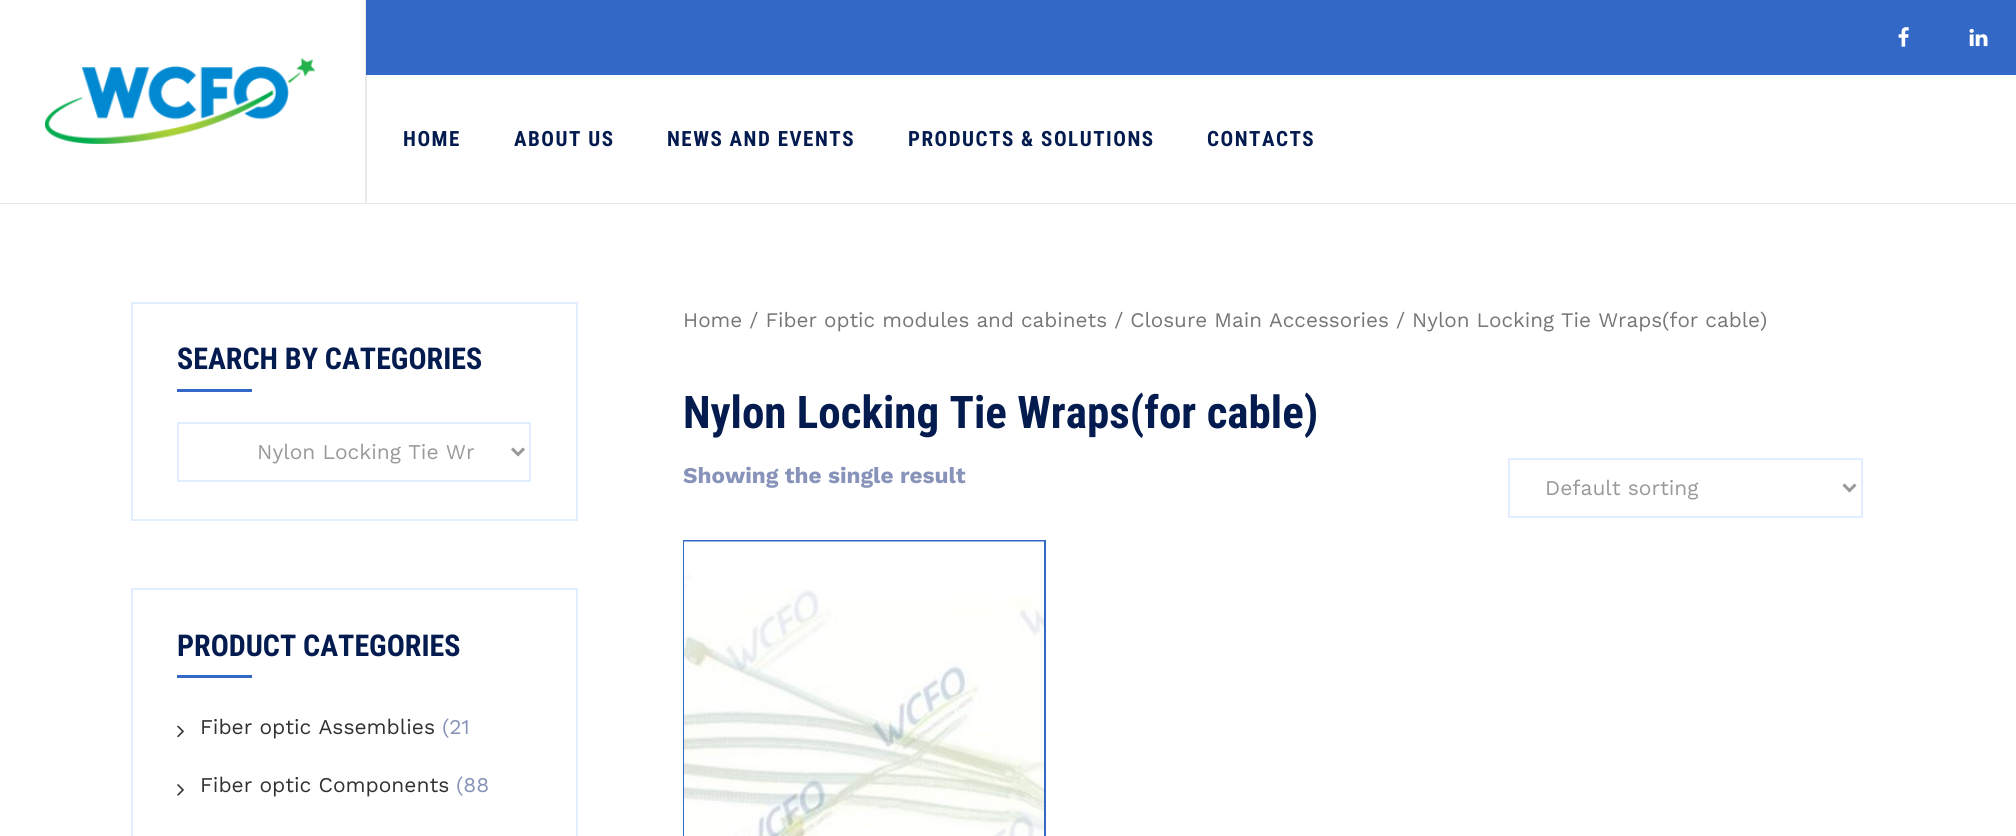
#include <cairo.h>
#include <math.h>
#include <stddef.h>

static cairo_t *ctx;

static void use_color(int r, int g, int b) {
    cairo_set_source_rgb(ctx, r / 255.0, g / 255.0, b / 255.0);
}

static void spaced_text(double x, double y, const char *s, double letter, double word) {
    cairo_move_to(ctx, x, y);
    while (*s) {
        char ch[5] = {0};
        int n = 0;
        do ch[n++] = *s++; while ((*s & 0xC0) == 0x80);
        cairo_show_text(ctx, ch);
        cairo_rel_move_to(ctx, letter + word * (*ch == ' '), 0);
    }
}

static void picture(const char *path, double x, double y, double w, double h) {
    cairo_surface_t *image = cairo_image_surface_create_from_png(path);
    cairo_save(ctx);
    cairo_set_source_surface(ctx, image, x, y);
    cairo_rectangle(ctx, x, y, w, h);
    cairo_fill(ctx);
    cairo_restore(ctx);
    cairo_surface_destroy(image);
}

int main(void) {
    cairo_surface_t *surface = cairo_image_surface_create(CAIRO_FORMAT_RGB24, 2016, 836);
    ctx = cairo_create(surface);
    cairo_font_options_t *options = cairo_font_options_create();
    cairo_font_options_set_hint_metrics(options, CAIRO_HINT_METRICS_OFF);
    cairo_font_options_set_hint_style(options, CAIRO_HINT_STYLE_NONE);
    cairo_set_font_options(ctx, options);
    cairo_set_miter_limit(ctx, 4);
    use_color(255, 255, 255);
    cairo_paint(ctx);
    use_color(233, 233, 233);
    cairo_rectangle(ctx, 0, 203, 2016, 1);
    cairo_fill(ctx);
    cairo_rectangle(ctx, 365, 0, 2, 203);
    cairo_fill(ctx);
    picture("img1.png", 45, 58, 270, 86);
    use_color(51, 104, 198);
    cairo_rectangle(ctx, 366, 0, 1650, 75);
    cairo_fill(ctx);
    picture("img2.png", 1898, 27, 11, 20);
    picture("img3.png", 1969, 28, 19, 19);
    cairo_select_font_face(ctx, "Roboto Condensed", CAIRO_FONT_SLANT_NORMAL, CAIRO_FONT_WEIGHT_BOLD);
    cairo_set_font_size(ctx, 21);
    use_color(3, 27, 78);
    spaced_text(403, 146, "HOME", 1.5, 0);
    spaced_text(514, 146, "ABOUT US", 1.5, 0);
    spaced_text(667, 146, "NEWS AND EVENTS", 1.5, 0);
    spaced_text(908, 146, "PRODUCTS & SOLUTIONS", 1.5, 0);
    spaced_text(1207, 146, "CONTACTS", 1.5, 0);
    cairo_rectangle(ctx, 132, 303, 445, 217);
    use_color(225, 238, 255);
    cairo_stroke(ctx);
    cairo_set_font_size(ctx, 30);
    use_color(3, 27, 78);
    cairo_move_to(ctx, 177, 369);
    cairo_show_text(ctx, "SEARCH BY CATEGORIES");
    use_color(51, 104, 198);
    cairo_rectangle(ctx, 177, 389, 75, 3);
    cairo_fill(ctx);
    cairo_rectangle(ctx, 178, 423, 352, 58);
    use_color(225, 238, 255);
    cairo_stroke(ctx);
    cairo_new_path(ctx);
    cairo_move_to(ctx, 512, 448.5);
    cairo_line_to(ctx, 518, 454.5);
    cairo_line_to(ctx, 524, 448.5);
    use_color(153, 153, 153);
    cairo_set_line_width(ctx, 3);
    cairo_stroke(ctx);
    cairo_select_font_face(ctx, "Work Sans", CAIRO_FONT_SLANT_NORMAL, CAIRO_FONT_WEIGHT_NORMAL);
    cairo_set_font_size(ctx, 21);
    cairo_move_to(ctx, 257, 459);
    cairo_show_text(ctx, "Nylon Locking Tie Wr");
    cairo_rectangle(ctx, 132, 589, 445, 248);
    use_color(225, 238, 255);
    cairo_set_line_width(ctx, 2);
    cairo_stroke(ctx);
    cairo_select_font_face(ctx, "Roboto Condensed", CAIRO_FONT_SLANT_NORMAL, CAIRO_FONT_WEIGHT_BOLD);
    cairo_set_font_size(ctx, 30);
    use_color(3, 27, 78);
    cairo_move_to(ctx, 177, 656);
    cairo_show_text(ctx, "PRODUCT CATEGORIES");
    use_color(51, 104, 198);
    cairo_rectangle(ctx, 177, 675, 75, 3);
    cairo_fill(ctx);
    picture("img4.png", 177, 725, 7, 13);
    cairo_select_font_face(ctx, "Work Sans", CAIRO_FONT_SLANT_NORMAL, CAIRO_FONT_WEIGHT_NORMAL);
    cairo_set_font_size(ctx, 21);
    use_color(49, 49, 49);
    cairo_move_to(ctx, 200, 734);
    cairo_show_text(ctx, "Fiber optic Assemblies");
    use_color(136, 147, 185);
    cairo_move_to(ctx, 442, 734);
    cairo_show_text(ctx, "(21");
    picture("img5.png", 177, 784, 7, 12);
    use_color(49, 49, 49);
    cairo_move_to(ctx, 200, 792);
    cairo_show_text(ctx, "Fiber optic Components");
    use_color(136, 147, 185);
    cairo_move_to(ctx, 456, 792);
    cairo_show_text(ctx, "(88");
    cairo_set_font_size(ctx, 20.7);
    use_color(118, 118, 118);
    cairo_move_to(ctx, 683, 327);
    cairo_show_text(ctx, "Home / Fiber optic modules and cabinets / Closure Main Accessories / Nylon Locking Tie Wraps(for cable)");
    cairo_select_font_face(ctx, "Roboto Condensed", CAIRO_FONT_SLANT_NORMAL, CAIRO_FONT_WEIGHT_BOLD);
    cairo_set_font_size(ctx, 45);
    use_color(3, 27, 78);
    cairo_move_to(ctx, 683, 428);
    cairo_show_text(ctx, "Nylon Locking Tie Wraps(for cable)");
    cairo_select_font_face(ctx, "Work Sans", CAIRO_FONT_SLANT_NORMAL, CAIRO_FONT_WEIGHT_BOLD);
    cairo_set_font_size(ctx, 22.5);
    use_color(136, 147, 185);
    cairo_move_to(ctx, 683, 483);
    cairo_show_text(ctx, "Showing the single result");
    cairo_rectangle(ctx, 1509, 459, 353, 58);
    use_color(225, 238, 255);
    cairo_stroke(ctx);
    cairo_new_path(ctx);
    cairo_move_to(ctx, 1843.5, 484.5);
    cairo_line_to(ctx, 1849.5, 490.5);
    cairo_line_to(ctx, 1855.5, 484.5);
    use_color(153, 153, 153);
    cairo_set_line_width(ctx, 3);
    cairo_stroke(ctx);
    cairo_select_font_face(ctx, "Work Sans", CAIRO_FONT_SLANT_NORMAL, CAIRO_FONT_WEIGHT_NORMAL);
    cairo_set_font_size(ctx, 21);
    cairo_move_to(ctx, 1545, 495);
    cairo_show_text(ctx, "Default sorting");
    cairo_rectangle(ctx, 684, 541, 361, 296);
    use_color(51, 104, 198);
    cairo_set_line_width(ctx, 2);
    cairo_stroke(ctx);
    picture("img6.png", 684, 541, 360, 295);
    cairo_surface_write_to_png(surface, "result.png");
    cairo_font_options_destroy(options);
    cairo_destroy(ctx);
    cairo_surface_destroy(surface);
    return 0;
}
